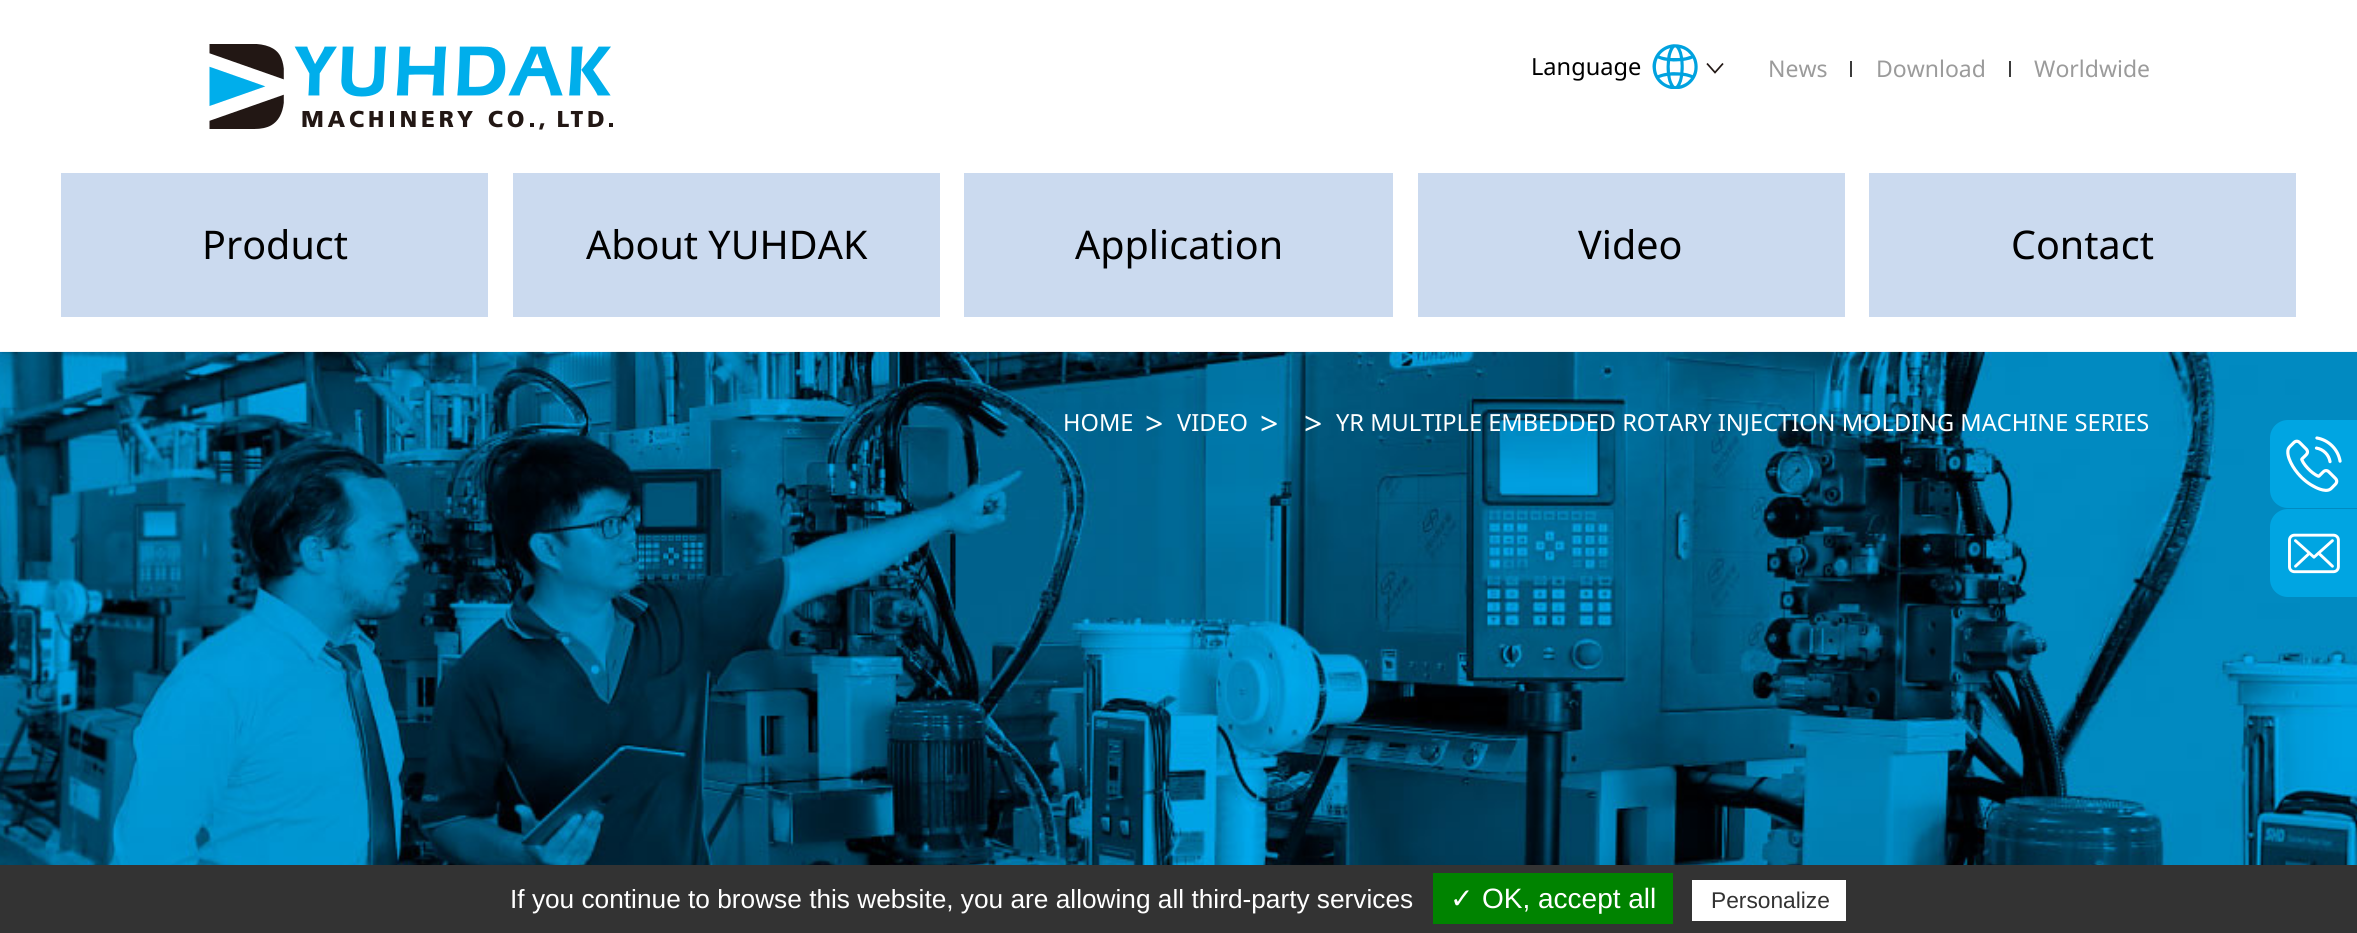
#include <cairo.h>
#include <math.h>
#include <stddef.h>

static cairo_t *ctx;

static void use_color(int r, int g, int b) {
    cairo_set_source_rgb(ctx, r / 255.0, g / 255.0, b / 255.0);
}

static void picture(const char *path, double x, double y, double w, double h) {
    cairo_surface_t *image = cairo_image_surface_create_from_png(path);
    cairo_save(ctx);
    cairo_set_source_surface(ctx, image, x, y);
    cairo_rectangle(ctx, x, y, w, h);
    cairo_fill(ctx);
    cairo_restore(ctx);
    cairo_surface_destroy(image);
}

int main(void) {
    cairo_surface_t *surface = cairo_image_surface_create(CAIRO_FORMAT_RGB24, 2357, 933);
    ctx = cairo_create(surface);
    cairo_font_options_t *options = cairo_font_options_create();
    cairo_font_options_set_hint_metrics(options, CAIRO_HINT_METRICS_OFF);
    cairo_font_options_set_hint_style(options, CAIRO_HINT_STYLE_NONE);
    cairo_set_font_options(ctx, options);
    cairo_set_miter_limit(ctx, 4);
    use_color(255, 255, 255);
    cairo_paint(ctx);
    picture("img1.png", 209, 44, 404, 86);
    picture("img2.png", 1652, 44, 46, 45);
    cairo_select_font_face(ctx, "Noto Sans", CAIRO_FONT_SLANT_NORMAL, CAIRO_FONT_WEIGHT_NORMAL);
    cairo_set_font_size(ctx, 23.6);
    use_color(0, 0, 0);
    cairo_move_to(ctx, 1531, 75);
    cairo_show_text(ctx, "Language");
    cairo_new_path(ctx);
    cairo_move_to(ctx, 1707, 63.5);
    cairo_line_to(ctx, 1715, 72.5);
    cairo_line_to(ctx, 1723, 63.5);
    use_color(34, 23, 20);
    cairo_set_line_width(ctx, 1.7);
    cairo_stroke(ctx);
    cairo_set_font_size(ctx, 23);
    use_color(155, 155, 155);
    cairo_move_to(ctx, 1768, 77);
    cairo_show_text(ctx, "News");
    use_color(59, 59, 59);
    cairo_rectangle(ctx, 1850, 61, 2, 16);
    cairo_fill(ctx);
    use_color(155, 155, 155);
    cairo_move_to(ctx, 1876, 77);
    cairo_show_text(ctx, "Download");
    use_color(59, 59, 59);
    cairo_rectangle(ctx, 2009, 61, 2, 16);
    cairo_fill(ctx);
    use_color(155, 155, 155);
    cairo_move_to(ctx, 2034, 77);
    cairo_show_text(ctx, "Worldwide");
    use_color(203, 218, 239);
    cairo_rectangle(ctx, 61, 173, 427, 144);
    cairo_fill(ctx);
    cairo_set_font_size(ctx, 39.5);
    use_color(0, 0, 0);
    cairo_move_to(ctx, 202, 259);
    cairo_show_text(ctx, "Product");
    use_color(203, 218, 239);
    cairo_rectangle(ctx, 513, 173, 427, 144);
    cairo_fill(ctx);
    use_color(0, 0, 0);
    cairo_move_to(ctx, 586, 259);
    cairo_show_text(ctx, "About YUHDAK");
    use_color(203, 218, 239);
    cairo_rectangle(ctx, 964, 173, 429, 144);
    cairo_fill(ctx);
    use_color(0, 0, 0);
    cairo_move_to(ctx, 1075, 259);
    cairo_show_text(ctx, "Application");
    use_color(203, 218, 239);
    cairo_rectangle(ctx, 1418, 173, 427, 144);
    cairo_fill(ctx);
    use_color(0, 0, 0);
    cairo_move_to(ctx, 1578, 259);
    cairo_show_text(ctx, "Video");
    use_color(203, 218, 239);
    cairo_rectangle(ctx, 1869, 173, 427, 144);
    cairo_fill(ctx);
    use_color(0, 0, 0);
    cairo_move_to(ctx, 2011, 259);
    cairo_show_text(ctx, "Contact");
    picture("img3.png", 0, 351, 2357, 514);
    cairo_set_font_size(ctx, 23.6);
    use_color(255, 255, 255);
    cairo_move_to(ctx, 1063, 431);
    cairo_show_text(ctx, "HOME");
    cairo_set_font_size(ctx, 32);
    cairo_move_to(ctx, 1145, 435);
    cairo_show_text(ctx, ">");
    cairo_set_font_size(ctx, 23.6);
    cairo_move_to(ctx, 1177, 431);
    cairo_show_text(ctx, "VIDEO");
    cairo_set_font_size(ctx, 32);
    cairo_move_to(ctx, 1260, 435);
    cairo_show_text(ctx, ">");
    cairo_move_to(ctx, 1304, 435);
    cairo_show_text(ctx, ">");
    cairo_set_font_size(ctx, 23.6);
    cairo_move_to(ctx, 1336, 431);
    cairo_show_text(ctx, "YR MULTIPLE EMBEDDED ROTARY INJECTION MOLDING MACHINE SERIES");
    use_color(0, 165, 226);
    cairo_new_path(ctx);
    cairo_move_to(ctx, 2288, 420);
    cairo_line_to(ctx, 2357, 420);
    cairo_line_to(ctx, 2357, 508);
    cairo_line_to(ctx, 2288, 508);
    cairo_curve_to(ctx, 2278, 508, 2270, 500, 2270, 490);
    cairo_line_to(ctx, 2270, 438);
    cairo_curve_to(ctx, 2270, 428, 2278, 420, 2288, 420);
    cairo_close_path(ctx);
    cairo_fill(ctx);
    picture("img4.png", 2286, 436, 56, 56);
    cairo_new_path(ctx);
    cairo_move_to(ctx, 2288, 509);
    cairo_line_to(ctx, 2357, 509);
    cairo_line_to(ctx, 2357, 597);
    cairo_line_to(ctx, 2288, 597);
    cairo_curve_to(ctx, 2278, 597, 2270, 589, 2270, 579);
    cairo_line_to(ctx, 2270, 527);
    cairo_curve_to(ctx, 2270, 517, 2278, 509, 2288, 509);
    cairo_close_path(ctx);
    cairo_fill(ctx);
    picture("img5.png", 2288, 533, 52, 41);
    use_color(51, 51, 51);
    cairo_rectangle(ctx, 0, 865, 2357, 68);
    cairo_fill(ctx);
    cairo_select_font_face(ctx, "Liberation Sans", CAIRO_FONT_SLANT_NORMAL, CAIRO_FONT_WEIGHT_NORMAL);
    cairo_set_font_size(ctx, 26.25);
    use_color(255, 255, 255);
    cairo_move_to(ctx, 510, 908);
    cairo_show_text(ctx, "If you continue to browse this website, you are allowing all third-party services");
    use_color(0, 131, 0);
    cairo_rectangle(ctx, 1433, 873, 240, 51);
    cairo_fill(ctx);
    cairo_select_font_face(ctx, "DejaVu Sans", CAIRO_FONT_SLANT_NORMAL, CAIRO_FONT_WEIGHT_NORMAL);
    cairo_set_font_size(ctx, 28);
    use_color(255, 255, 255);
    cairo_move_to(ctx, 1450, 908);
    cairo_show_text(ctx, "✓");
    cairo_select_font_face(ctx, "Liberation Sans", CAIRO_FONT_SLANT_NORMAL, CAIRO_FONT_WEIGHT_NORMAL);
    cairo_move_to(ctx, 1482, 908);
    cairo_show_text(ctx, "OK, accept all");
    cairo_rectangle(ctx, 1692, 880, 154, 41);
    cairo_fill(ctx);
    cairo_set_font_size(ctx, 22.75);
    use_color(51, 51, 51);
    cairo_move_to(ctx, 1711, 908);
    cairo_show_text(ctx, "Personalize");
    cairo_surface_write_to_png(surface, "result.png");
    cairo_font_options_destroy(options);
    cairo_destroy(ctx);
    cairo_surface_destroy(surface);
    return 0;
}
